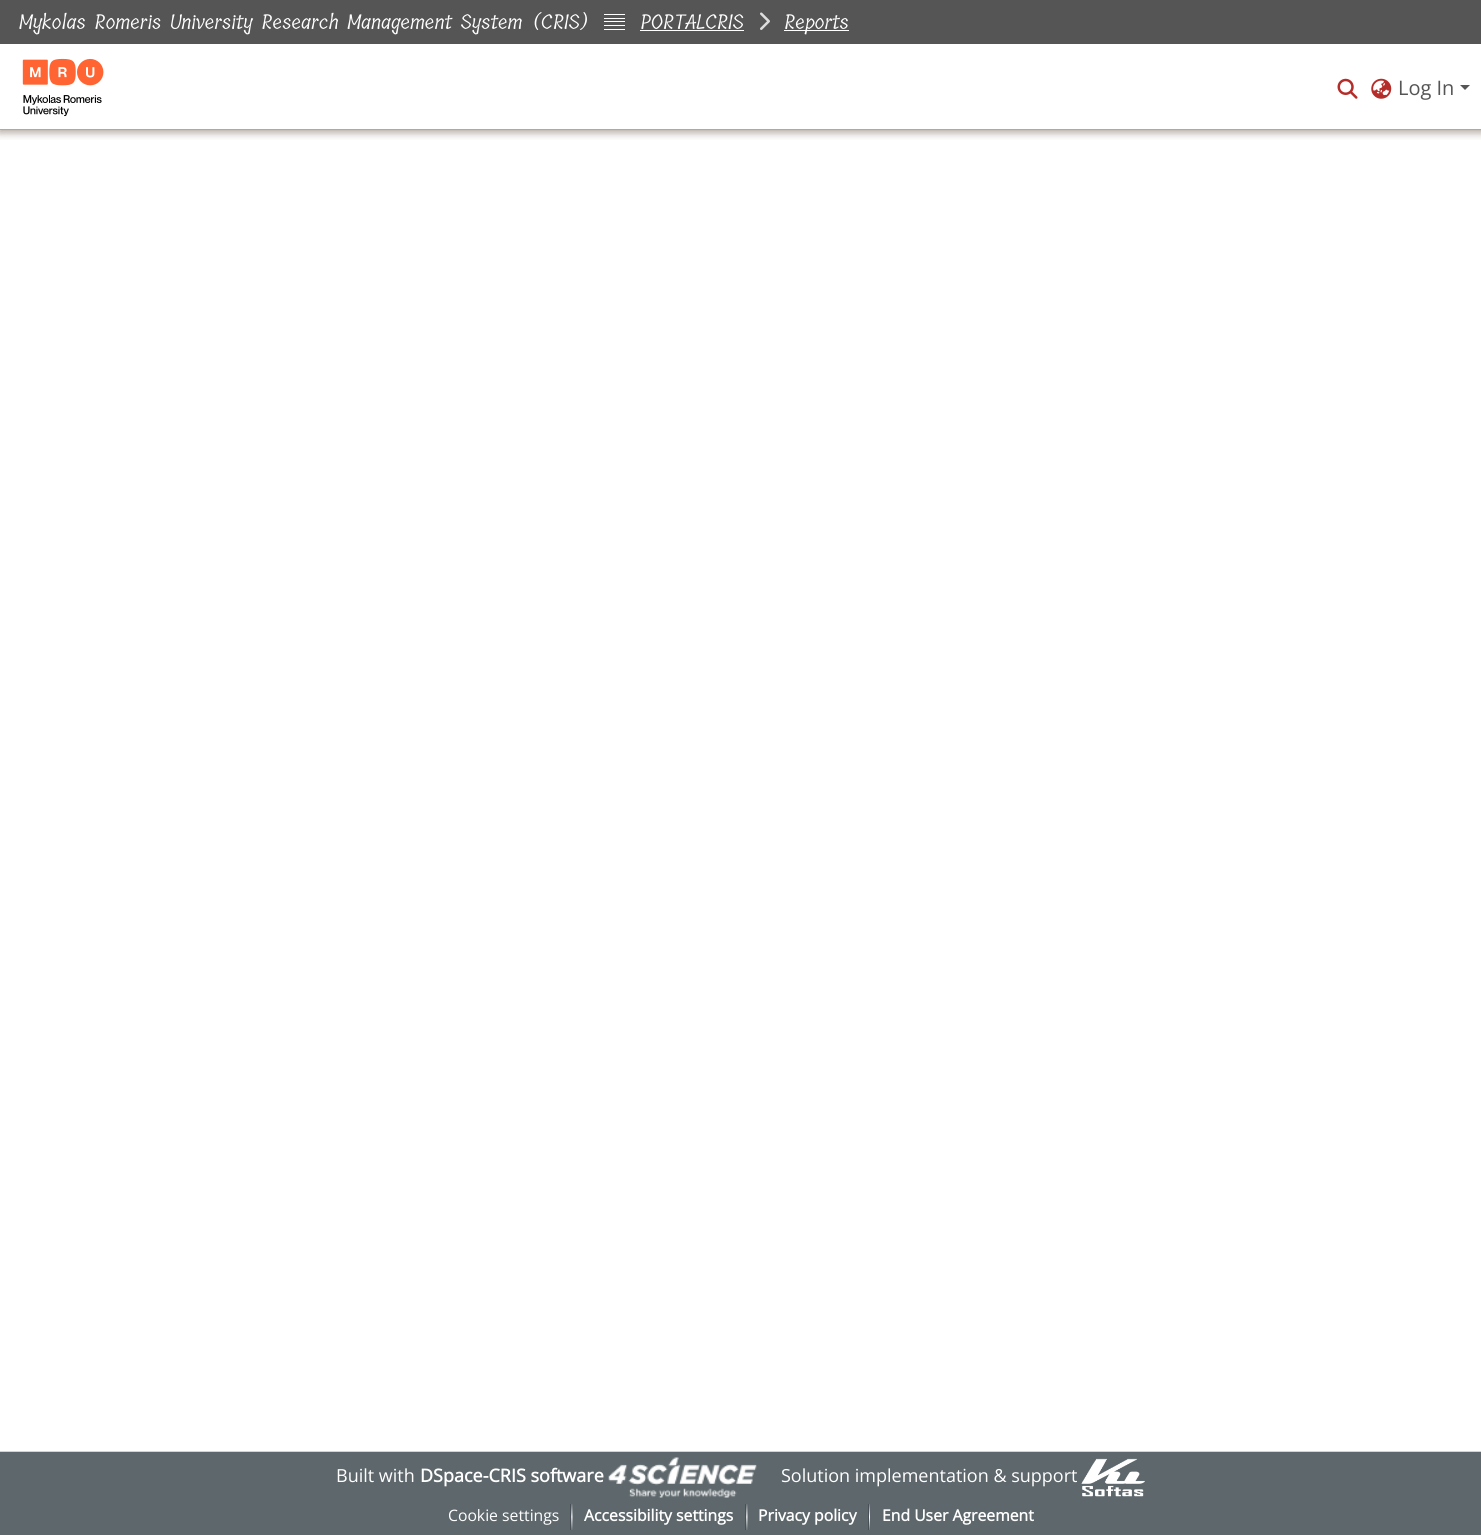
#include <cairo.h>
#include <math.h>
#include <stddef.h>

static cairo_t *ctx;

static void use_color(int r, int g, int b) {
    cairo_set_source_rgb(ctx, r / 255.0, g / 255.0, b / 255.0);
}

static void round_rect(double x, double y, double w, double h, double r) {
    cairo_new_sub_path(ctx);
    cairo_arc(ctx, x + w - r, y + h - r, r, 0, M_PI / 2);
    cairo_arc(ctx, x + r, y + h - r, r, M_PI / 2, M_PI);
    cairo_arc(ctx, x + r, y + r, r, M_PI, 1.5 * M_PI);
    cairo_arc(ctx, x + w - r, y + r, r, 1.5 * M_PI, 2 * M_PI);
    cairo_close_path(ctx);
}

static void shadow(double x, double y, double w, double h, double r, double blur, double alpha) {
    cairo_push_group_with_content(ctx, CAIRO_CONTENT_ALPHA);
    cairo_set_operator(ctx, CAIRO_OPERATOR_SOURCE);
    for (int i = 15; i >= -15 && fmin(w, h) + blur * i / 3 > 0; i -= 2) {
        double e = blur * i / 6;
        cairo_set_source_rgba(ctx, 0, 0, 0, alpha * erfc((i - 1) / 8.5) / 2);
        round_rect(x - e, y - e, w + 2 * e, h + 2 * e, fmax(0, fmin(r + e + blur * .6, fmin(w, h) / 2 + e)));
        cairo_fill(ctx);
    }
    cairo_pattern_t *soft = cairo_pop_group(ctx);
    cairo_mask(ctx, soft);
    cairo_pattern_destroy(soft);
}

static void picture(const char *path, double x, double y, double w, double h) {
    cairo_surface_t *image = cairo_image_surface_create_from_png(path);
    cairo_save(ctx);
    cairo_set_source_surface(ctx, image, x, y);
    cairo_rectangle(ctx, x, y, w, h);
    cairo_fill(ctx);
    cairo_restore(ctx);
    cairo_surface_destroy(image);
}

int main(void) {
    cairo_surface_t *surface = cairo_image_surface_create(CAIRO_FORMAT_RGB24, 1481, 1535);
    ctx = cairo_create(surface);
    cairo_font_options_t *options = cairo_font_options_create();
    cairo_font_options_set_hint_metrics(options, CAIRO_HINT_METRICS_OFF);
    cairo_font_options_set_hint_style(options, CAIRO_HINT_STYLE_NONE);
    cairo_set_font_options(ctx, options);
    cairo_set_miter_limit(ctx, 4);
    use_color(255, 255, 255);
    cairo_paint(ctx);
    cairo_save(ctx);
    cairo_rectangle(ctx, 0, 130, 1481, 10);
    cairo_clip(ctx);
    use_color(104, 87, 68);
    shadow(-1, 0, 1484, 133, 0, 4, 0.5);
    cairo_restore(ctx);
    use_color(170, 170, 170);
    cairo_rectangle(ctx, 0, 129, 1481, 1);
    cairo_fill(ctx);
    use_color(85, 85, 85);
    cairo_rectangle(ctx, 0, 0, 1481, 44);
    cairo_fill(ctx);
    cairo_select_font_face(ctx, "Tillana", CAIRO_FONT_SLANT_NORMAL, CAIRO_FONT_WEIGHT_NORMAL);
    cairo_set_font_size(ctx, 20);
    use_color(255, 255, 255);
    cairo_move_to(ctx, 19, 29);
    cairo_show_text(ctx, "Mykolas Romeris University Research Management System (CRIS)");
    cairo_rectangle(ctx, 604, 14, 21, 1);
    cairo_fill(ctx);
    cairo_rectangle(ctx, 604, 18, 21, 1);
    cairo_fill(ctx);
    cairo_rectangle(ctx, 604, 21, 21, 1);
    cairo_fill(ctx);
    cairo_rectangle(ctx, 604, 25, 21, 1);
    cairo_fill(ctx);
    cairo_rectangle(ctx, 604, 29, 21, 1);
    cairo_fill(ctx);
    cairo_move_to(ctx, 640, 29);
    cairo_show_text(ctx, "PORTALCRIS");
    cairo_rectangle(ctx, 640, 30, 104, 1);
    cairo_fill(ctx);
    picture("img1.png", 760, 12, 10, 18);
    cairo_rectangle(ctx, 784, 30, 65, 1);
    cairo_fill(ctx);
    cairo_move_to(ctx, 784, 29);
    cairo_show_text(ctx, "Reports");
    picture("img2.png", 22, 58, 82, 59);
    picture("img3.png", 1337, 78, 21, 21);
    picture("img4.png", 1371, 78, 21, 21);
    cairo_select_font_face(ctx, "Open Sans", CAIRO_FONT_SLANT_NORMAL, CAIRO_FONT_WEIGHT_NORMAL);
    use_color(85, 85, 85);
    cairo_move_to(ctx, 1398, 95);
    cairo_show_text(ctx, "Log In");
    cairo_new_path(ctx);
    cairo_move_to(ctx, 1460, 85);
    cairo_line_to(ctx, 1470, 85);
    cairo_line_to(ctx, 1465, 90);
    cairo_close_path(ctx);
    cairo_fill(ctx);
    use_color(93, 103, 108);
    cairo_rectangle(ctx, 0, 1452, 1481, 83);
    cairo_fill(ctx);
    use_color(206, 212, 218);
    cairo_rectangle(ctx, 0, 1451, 1481, 1);
    cairo_fill(ctx);
    cairo_set_font_size(ctx, 18);
    use_color(255, 255, 255);
    cairo_move_to(ctx, 336, 1482);
    cairo_show_text(ctx, "Built with");
    cairo_select_font_face(ctx, "Open Sans", CAIRO_FONT_SLANT_NORMAL, CAIRO_FONT_WEIGHT_BOLD);
    cairo_move_to(ctx, 420, 1482);
    cairo_show_text(ctx, "DSpace-CRIS software");
    picture("img5.png", 608, 1457, 149, 41);
    cairo_select_font_face(ctx, "Open Sans", CAIRO_FONT_SLANT_NORMAL, CAIRO_FONT_WEIGHT_NORMAL);
    cairo_move_to(ctx, 781, 1482);
    cairo_show_text(ctx, "Solution implementation & support");
    picture("img6.png", 1081, 1458, 64, 39);
    picture("img7.png", 571, 1504, 2, 26);
    cairo_set_font_size(ctx, 15.75);
    cairo_move_to(ctx, 448, 1521);
    cairo_show_text(ctx, "Cookie settings");
    use_color(73, 80, 87);
    cairo_rectangle(ctx, 570, 1504, 1, 26);
    cairo_fill(ctx);
    picture("img8.png", 746, 1504, 2, 26);
    cairo_select_font_face(ctx, "Open Sans", CAIRO_FONT_SLANT_NORMAL, CAIRO_FONT_WEIGHT_BOLD);
    use_color(255, 255, 255);
    cairo_move_to(ctx, 584, 1521);
    cairo_show_text(ctx, "Accessibility settings");
    use_color(73, 80, 87);
    cairo_rectangle(ctx, 745, 1504, 1, 26);
    cairo_fill(ctx);
    picture("img9.png", 869, 1504, 1, 26);
    use_color(255, 255, 255);
    cairo_move_to(ctx, 758, 1521);
    cairo_show_text(ctx, "Privacy policy");
    use_color(73, 80, 87);
    cairo_rectangle(ctx, 868, 1504, 1, 26);
    cairo_fill(ctx);
    use_color(255, 255, 255);
    cairo_move_to(ctx, 882, 1521);
    cairo_show_text(ctx, "End User Agreement");
    cairo_surface_write_to_png(surface, "result.png");
    cairo_font_options_destroy(options);
    cairo_destroy(ctx);
    cairo_surface_destroy(surface);
    return 0;
}
